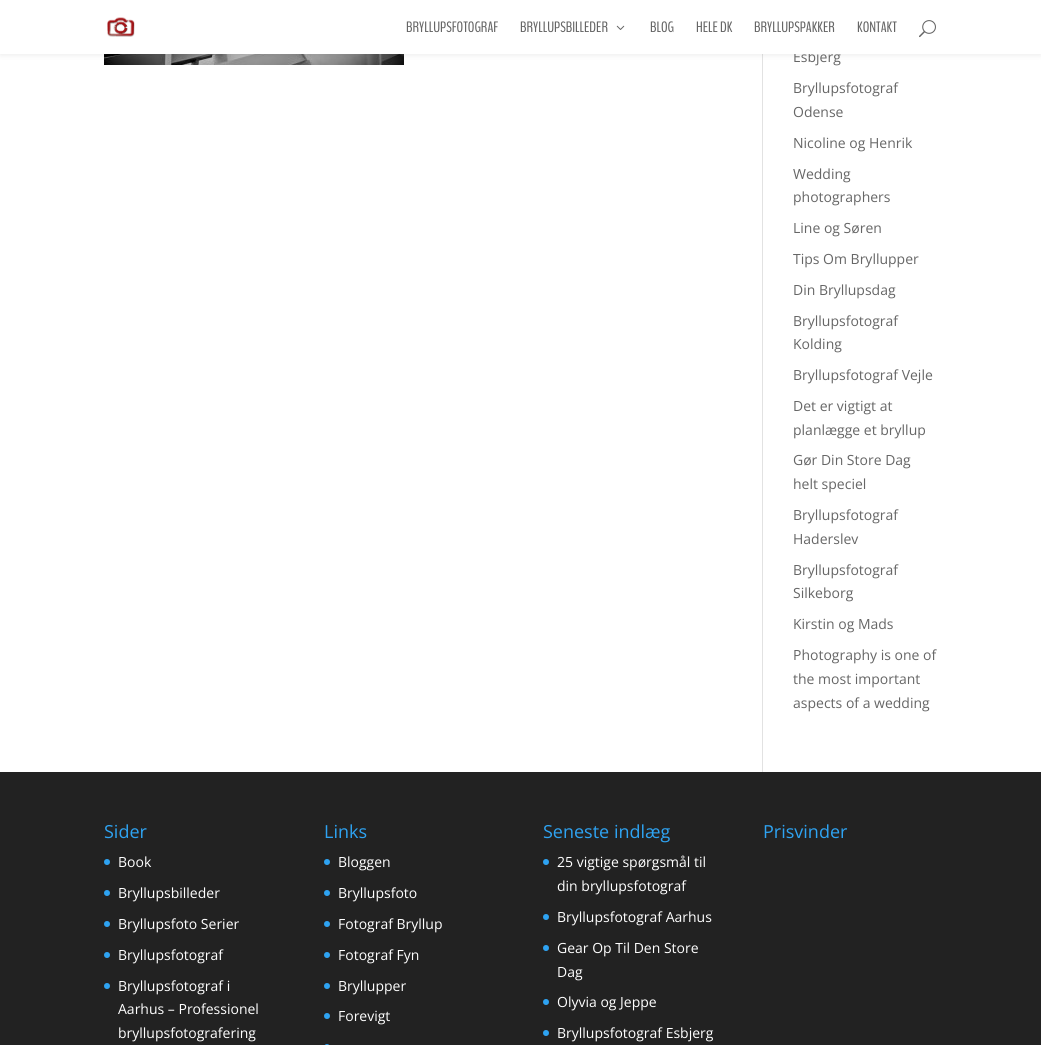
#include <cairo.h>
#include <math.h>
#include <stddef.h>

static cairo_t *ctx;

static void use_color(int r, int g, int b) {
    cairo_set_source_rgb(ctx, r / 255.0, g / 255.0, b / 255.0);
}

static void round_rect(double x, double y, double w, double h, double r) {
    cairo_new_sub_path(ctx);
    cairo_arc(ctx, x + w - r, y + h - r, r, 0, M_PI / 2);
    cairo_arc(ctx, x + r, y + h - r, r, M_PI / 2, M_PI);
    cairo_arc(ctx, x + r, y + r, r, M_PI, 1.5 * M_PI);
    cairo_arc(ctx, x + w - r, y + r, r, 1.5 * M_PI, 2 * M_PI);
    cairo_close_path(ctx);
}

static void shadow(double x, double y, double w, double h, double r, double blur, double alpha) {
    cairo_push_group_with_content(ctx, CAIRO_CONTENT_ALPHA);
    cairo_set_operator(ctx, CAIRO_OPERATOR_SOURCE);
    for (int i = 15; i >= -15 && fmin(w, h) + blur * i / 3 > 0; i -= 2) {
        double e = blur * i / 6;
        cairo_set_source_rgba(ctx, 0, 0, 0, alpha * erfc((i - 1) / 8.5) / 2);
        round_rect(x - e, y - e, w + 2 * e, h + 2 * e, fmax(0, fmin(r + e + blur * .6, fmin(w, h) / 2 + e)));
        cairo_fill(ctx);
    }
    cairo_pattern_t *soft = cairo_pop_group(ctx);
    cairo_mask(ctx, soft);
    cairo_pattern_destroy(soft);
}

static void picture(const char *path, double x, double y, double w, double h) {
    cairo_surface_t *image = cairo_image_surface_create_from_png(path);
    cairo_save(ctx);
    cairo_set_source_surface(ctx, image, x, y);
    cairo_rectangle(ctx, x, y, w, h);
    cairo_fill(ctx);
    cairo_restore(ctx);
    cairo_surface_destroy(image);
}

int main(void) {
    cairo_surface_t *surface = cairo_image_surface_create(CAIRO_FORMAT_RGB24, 1041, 1045);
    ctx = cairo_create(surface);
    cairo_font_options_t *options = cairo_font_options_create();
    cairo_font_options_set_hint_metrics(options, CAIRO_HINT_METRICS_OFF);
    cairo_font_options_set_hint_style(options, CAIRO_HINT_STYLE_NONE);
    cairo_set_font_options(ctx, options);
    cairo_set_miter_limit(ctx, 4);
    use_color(255, 255, 255);
    cairo_paint(ctx);
    use_color(226, 226, 226);
    cairo_rectangle(ctx, 762, 54, 1, 718);
    cairo_fill(ctx);
    picture("img4.png", 104, 54, 300, 11);
    use_color(0, 0, 0);
    shadow(0, 0, 1041, 54, 0, 3.5, 0.1);
    cairo_select_font_face(ctx, "Open Sans", CAIRO_FONT_SLANT_NORMAL, CAIRO_FONT_WEIGHT_NORMAL);
    cairo_set_font_size(ctx, 14);
    use_color(102, 102, 102);
    cairo_move_to(ctx, 793, 62);
    cairo_show_text(ctx, "Esbjerg");
    use_color(255, 255, 255);
    cairo_rectangle(ctx, 0, 0, 1041, 54);
    cairo_fill(ctx);
    picture("img1.png", 107, 17, 28, 20);
    cairo_select_font_face(ctx, "BenchNine", CAIRO_FONT_SLANT_NORMAL, CAIRO_FONT_WEIGHT_NORMAL);
    cairo_set_font_size(ctx, 15);
    use_color(102, 102, 102);
    cairo_move_to(ctx, 406, 32);
    cairo_show_text(ctx, "BRYLLUPSFOTOGRAF");
    cairo_move_to(ctx, 520, 32);
    cairo_show_text(ctx, "BRYLLUPSBILLEDER");
    picture("img2.png", 616, 25, 9, 5);
    cairo_move_to(ctx, 650, 32);
    cairo_show_text(ctx, "BLOG");
    cairo_move_to(ctx, 696, 32);
    cairo_show_text(ctx, "HELE DK");
    cairo_move_to(ctx, 754, 32);
    cairo_show_text(ctx, "BRYLLUPSPAKKER");
    cairo_move_to(ctx, 857, 32);
    cairo_show_text(ctx, "KONTAKT");
    picture("img3.png", 919, 20, 17, 18);
    cairo_select_font_face(ctx, "Open Sans", CAIRO_FONT_SLANT_NORMAL, CAIRO_FONT_WEIGHT_NORMAL);
    cairo_set_font_size(ctx, 14);
    cairo_move_to(ctx, 793, 93);
    cairo_show_text(ctx, "Bryllupsfotograf");
    cairo_move_to(ctx, 793, 117);
    cairo_show_text(ctx, "Odense");
    cairo_move_to(ctx, 793, 148);
    cairo_show_text(ctx, "Nicoline og Henrik");
    cairo_move_to(ctx, 793, 179);
    cairo_show_text(ctx, "Wedding");
    cairo_move_to(ctx, 793, 202);
    cairo_show_text(ctx, "photographers");
    cairo_move_to(ctx, 793, 233);
    cairo_show_text(ctx, "Line og Søren");
    cairo_move_to(ctx, 793, 264);
    cairo_show_text(ctx, "Tips Om Bryllupper");
    cairo_move_to(ctx, 793, 295);
    cairo_show_text(ctx, "Din Bryllupsdag");
    cairo_move_to(ctx, 793, 326);
    cairo_show_text(ctx, "Bryllupsfotograf");
    cairo_move_to(ctx, 793, 349);
    cairo_show_text(ctx, "Kolding");
    cairo_move_to(ctx, 793, 380);
    cairo_show_text(ctx, "Bryllupsfotograf Vejle");
    cairo_move_to(ctx, 793, 411);
    cairo_show_text(ctx, "Det er vigtigt at");
    cairo_move_to(ctx, 793, 435);
    cairo_show_text(ctx, "planlægge et bryllup");
    cairo_move_to(ctx, 793, 465);
    cairo_show_text(ctx, "Gør Din Store Dag");
    cairo_move_to(ctx, 793, 489);
    cairo_show_text(ctx, "helt speciel");
    cairo_move_to(ctx, 793, 520);
    cairo_show_text(ctx, "Bryllupsfotograf");
    cairo_move_to(ctx, 793, 544);
    cairo_show_text(ctx, "Haderslev");
    cairo_move_to(ctx, 793, 575);
    cairo_show_text(ctx, "Bryllupsfotograf");
    cairo_move_to(ctx, 793, 598);
    cairo_show_text(ctx, "Silkeborg");
    cairo_move_to(ctx, 793, 629);
    cairo_show_text(ctx, "Kirstin og Mads");
    cairo_move_to(ctx, 793, 660);
    cairo_show_text(ctx, "Photography is one of");
    cairo_move_to(ctx, 793, 684);
    cairo_show_text(ctx, "the most important");
    cairo_move_to(ctx, 793, 708);
    cairo_show_text(ctx, "aspects of a wedding");
    use_color(34, 34, 34);
    cairo_rectangle(ctx, 0, 772, 1041, 273);
    cairo_fill(ctx);
    cairo_set_font_size(ctx, 18);
    use_color(46, 163, 242);
    cairo_move_to(ctx, 104, 838);
    cairo_show_text(ctx, "Sider");
    cairo_new_path(ctx);
    cairo_arc(ctx, 107, 862, 3, 0, 2 * M_PI);
    cairo_fill(ctx);
    cairo_set_font_size(ctx, 14);
    use_color(255, 255, 255);
    cairo_move_to(ctx, 118, 867);
    cairo_show_text(ctx, "Book");
    use_color(46, 163, 242);
    cairo_new_path(ctx);
    cairo_arc(ctx, 107, 893, 3, 0, 2 * M_PI);
    cairo_fill(ctx);
    use_color(255, 255, 255);
    cairo_move_to(ctx, 118, 898);
    cairo_show_text(ctx, "Bryllupsbilleder");
    use_color(46, 163, 242);
    cairo_new_path(ctx);
    cairo_arc(ctx, 107, 924, 3, 0, 2 * M_PI);
    cairo_fill(ctx);
    use_color(255, 255, 255);
    cairo_move_to(ctx, 118, 929);
    cairo_show_text(ctx, "Bryllupsfoto Serier");
    use_color(46, 163, 242);
    cairo_new_path(ctx);
    cairo_arc(ctx, 107, 955, 3, 0, 2 * M_PI);
    cairo_fill(ctx);
    use_color(255, 255, 255);
    cairo_move_to(ctx, 118, 960);
    cairo_show_text(ctx, "Bryllupsfotograf");
    use_color(46, 163, 242);
    cairo_new_path(ctx);
    cairo_arc(ctx, 107, 986, 3, 0, 2 * M_PI);
    cairo_fill(ctx);
    use_color(255, 255, 255);
    cairo_move_to(ctx, 118, 991);
    cairo_show_text(ctx, "Bryllupsfotograf i");
    cairo_move_to(ctx, 118, 1014);
    cairo_show_text(ctx, "Aarhus – Professionel");
    cairo_move_to(ctx, 118, 1038);
    cairo_show_text(ctx, "bryllupsfotografering");
    cairo_set_font_size(ctx, 18);
    use_color(46, 163, 242);
    cairo_move_to(ctx, 324, 838);
    cairo_show_text(ctx, "Links");
    cairo_new_path(ctx);
    cairo_arc(ctx, 327, 862, 3, 0, 2 * M_PI);
    cairo_fill(ctx);
    cairo_set_font_size(ctx, 14);
    use_color(255, 255, 255);
    cairo_move_to(ctx, 338, 867);
    cairo_show_text(ctx, "Bloggen");
    use_color(46, 163, 242);
    cairo_new_path(ctx);
    cairo_arc(ctx, 327, 893, 3, 0, 2 * M_PI);
    cairo_fill(ctx);
    use_color(255, 255, 255);
    cairo_move_to(ctx, 338, 898);
    cairo_show_text(ctx, "Bryllupsfoto");
    use_color(46, 163, 242);
    cairo_new_path(ctx);
    cairo_arc(ctx, 327, 924, 3, 0, 2 * M_PI);
    cairo_fill(ctx);
    use_color(255, 255, 255);
    cairo_move_to(ctx, 338, 929);
    cairo_show_text(ctx, "Fotograf Bryllup");
    use_color(46, 163, 242);
    cairo_new_path(ctx);
    cairo_arc(ctx, 327, 955, 3, 0, 2 * M_PI);
    cairo_fill(ctx);
    use_color(255, 255, 255);
    cairo_move_to(ctx, 338, 960);
    cairo_show_text(ctx, "Fotograf Fyn");
    use_color(46, 163, 242);
    cairo_new_path(ctx);
    cairo_arc(ctx, 327, 986, 3, 0, 2 * M_PI);
    cairo_fill(ctx);
    use_color(255, 255, 255);
    cairo_move_to(ctx, 338, 991);
    cairo_show_text(ctx, "Bryllupper");
    use_color(46, 163, 242);
    cairo_new_path(ctx);
    cairo_arc(ctx, 327, 1016, 3, 0, 2 * M_PI);
    cairo_fill(ctx);
    use_color(255, 255, 255);
    cairo_move_to(ctx, 338, 1021);
    cairo_show_text(ctx, "Forevigt");
    use_color(46, 163, 242);
    round_rect(324, 1044, 6, 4, 3);
    cairo_fill(ctx);
    cairo_set_font_size(ctx, 18);
    cairo_move_to(ctx, 543, 838);
    cairo_show_text(ctx, "Seneste indlæg");
    cairo_new_path(ctx);
    cairo_arc(ctx, 546, 862, 3, 0, 2 * M_PI);
    cairo_fill(ctx);
    cairo_set_font_size(ctx, 14);
    use_color(255, 255, 255);
    cairo_move_to(ctx, 557, 867);
    cairo_show_text(ctx, "25 vigtige spørgsmål til");
    cairo_move_to(ctx, 557, 891);
    cairo_show_text(ctx, "din bryllupsfotograf");
    use_color(46, 163, 242);
    cairo_new_path(ctx);
    cairo_arc(ctx, 546, 917, 3, 0, 2 * M_PI);
    cairo_fill(ctx);
    use_color(255, 255, 255);
    cairo_move_to(ctx, 557, 922);
    cairo_show_text(ctx, "Bryllupsfotograf Aarhus");
    use_color(46, 163, 242);
    cairo_new_path(ctx);
    cairo_arc(ctx, 546, 948, 3, 0, 2 * M_PI);
    cairo_fill(ctx);
    use_color(255, 255, 255);
    cairo_move_to(ctx, 557, 953);
    cairo_show_text(ctx, "Gear Op Til Den Store");
    cairo_move_to(ctx, 557, 977);
    cairo_show_text(ctx, "Dag");
    use_color(46, 163, 242);
    cairo_new_path(ctx);
    cairo_arc(ctx, 546, 1002, 3, 0, 2 * M_PI);
    cairo_fill(ctx);
    use_color(255, 255, 255);
    cairo_move_to(ctx, 557, 1007);
    cairo_show_text(ctx, "Olyvia og Jeppe");
    use_color(46, 163, 242);
    cairo_new_path(ctx);
    cairo_arc(ctx, 546, 1033, 3, 0, 2 * M_PI);
    cairo_fill(ctx);
    use_color(255, 255, 255);
    cairo_move_to(ctx, 557, 1038);
    cairo_show_text(ctx, "Bryllupsfotograf Esbjerg");
    cairo_set_font_size(ctx, 18);
    use_color(46, 163, 242);
    cairo_move_to(ctx, 763, 838);
    cairo_show_text(ctx, "Prisvinder");
    cairo_surface_write_to_png(surface, "result.png");
    cairo_font_options_destroy(options);
    cairo_destroy(ctx);
    cairo_surface_destroy(surface);
    return 0;
}
